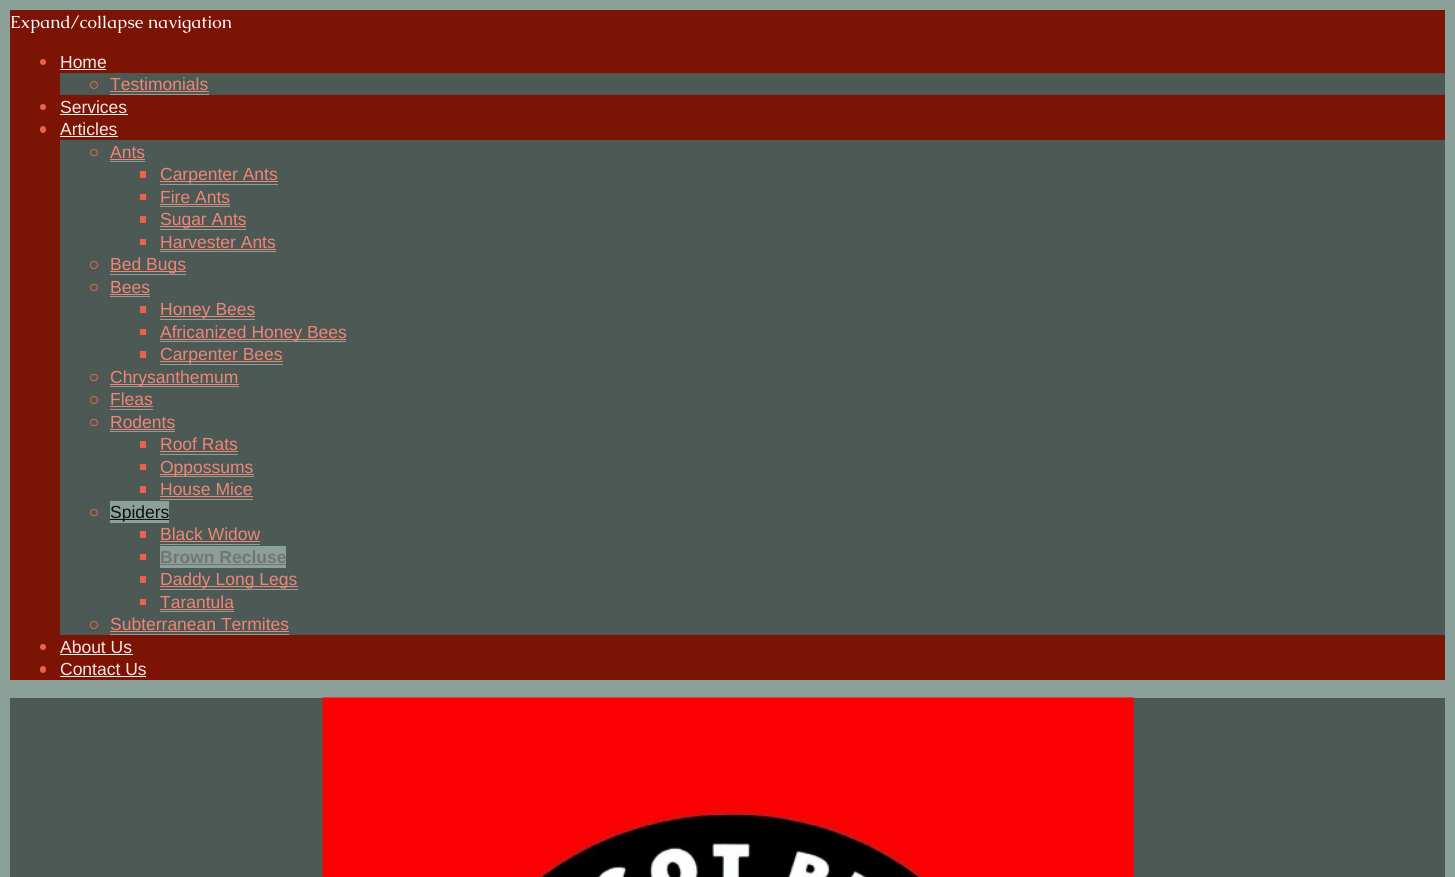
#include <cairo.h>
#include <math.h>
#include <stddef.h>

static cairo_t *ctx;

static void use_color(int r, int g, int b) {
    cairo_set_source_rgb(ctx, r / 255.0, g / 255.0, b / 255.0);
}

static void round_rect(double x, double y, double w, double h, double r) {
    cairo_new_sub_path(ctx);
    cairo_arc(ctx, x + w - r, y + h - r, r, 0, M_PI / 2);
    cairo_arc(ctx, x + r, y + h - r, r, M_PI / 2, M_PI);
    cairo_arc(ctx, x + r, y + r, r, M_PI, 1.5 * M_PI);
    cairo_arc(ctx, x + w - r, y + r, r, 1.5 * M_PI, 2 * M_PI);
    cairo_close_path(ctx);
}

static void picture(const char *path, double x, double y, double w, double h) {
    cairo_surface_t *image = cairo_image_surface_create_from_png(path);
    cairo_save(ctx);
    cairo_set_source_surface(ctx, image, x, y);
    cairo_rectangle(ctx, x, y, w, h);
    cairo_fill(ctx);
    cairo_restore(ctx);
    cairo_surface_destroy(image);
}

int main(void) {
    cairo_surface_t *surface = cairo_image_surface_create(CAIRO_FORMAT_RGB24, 1455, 877);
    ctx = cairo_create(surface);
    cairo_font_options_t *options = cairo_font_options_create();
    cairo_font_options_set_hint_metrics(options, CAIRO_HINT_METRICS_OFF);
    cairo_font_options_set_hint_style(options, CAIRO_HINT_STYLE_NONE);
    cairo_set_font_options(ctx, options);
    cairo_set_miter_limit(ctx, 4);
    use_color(139, 160, 153);
    cairo_paint(ctx);
    use_color(123, 20, 4);
    cairo_rectangle(ctx, 10, 10, 1435, 670);
    cairo_fill(ctx);
    cairo_select_font_face(ctx, "Caudex", CAIRO_FONT_SLANT_NORMAL, CAIRO_FONT_WEIGHT_NORMAL);
    cairo_set_font_size(ctx, 17.5);
    use_color(255, 255, 255);
    cairo_move_to(ctx, 10, 28);
    cairo_show_text(ctx, "Expand/collapse navigation");
    use_color(237, 96, 74);
    cairo_new_path(ctx);
    cairo_arc(ctx, 43, 62, 3, 0, 2 * M_PI);
    cairo_fill(ctx);
    cairo_select_font_face(ctx, "Liberation Sans", CAIRO_FONT_SLANT_NORMAL, CAIRO_FONT_WEIGHT_NORMAL);
    use_color(242, 232, 230);
    cairo_move_to(ctx, 60, 68);
    cairo_show_text(ctx, "Home");
    cairo_rectangle(ctx, 60, 69, 46, 1);
    cairo_fill(ctx);
    use_color(76, 89, 85);
    cairo_rectangle(ctx, 60, 73, 1385, 22);
    cairo_fill(ctx);
    cairo_arc(ctx, 94, 85, 3.5, 0, 2 * M_PI);
    use_color(237, 96, 74);
    cairo_set_line_width(ctx, 1);
    cairo_stroke(ctx);
    use_color(238, 134, 118);
    cairo_move_to(ctx, 110, 90);
    cairo_show_text(ctx, "Testimonials");
    use_color(139, 160, 153);
    cairo_rectangle(ctx, 110, 94, 99, 1);
    cairo_fill(ctx);
    use_color(238, 134, 118);
    cairo_rectangle(ctx, 110, 91, 99, 1);
    cairo_fill(ctx);
    use_color(237, 96, 74);
    cairo_arc(ctx, 43, 107, 3, 0, 2 * M_PI);
    cairo_fill(ctx);
    use_color(242, 232, 230);
    cairo_move_to(ctx, 60, 113);
    cairo_show_text(ctx, "Services");
    cairo_rectangle(ctx, 60, 114, 68, 1);
    cairo_fill(ctx);
    use_color(237, 96, 74);
    round_rect(40, 126, 6, 7, 3);
    cairo_fill(ctx);
    use_color(242, 232, 230);
    cairo_move_to(ctx, 60, 135);
    cairo_show_text(ctx, "Articles");
    cairo_rectangle(ctx, 60, 136, 58, 1);
    cairo_fill(ctx);
    use_color(76, 89, 85);
    cairo_rectangle(ctx, 60, 140, 1385, 495);
    cairo_fill(ctx);
    round_rect(90.5, 149.5, 7, 6, 3);
    use_color(237, 96, 74);
    cairo_stroke(ctx);
    use_color(238, 134, 118);
    cairo_move_to(ctx, 110, 158);
    cairo_show_text(ctx, "Ants");
    use_color(139, 160, 153);
    cairo_rectangle(ctx, 110, 161, 35, 1);
    cairo_fill(ctx);
    use_color(238, 134, 118);
    cairo_rectangle(ctx, 110, 159, 35, 1);
    cairo_fill(ctx);
    use_color(237, 96, 74);
    cairo_rectangle(ctx, 140, 171, 6, 7);
    cairo_fill(ctx);
    use_color(238, 134, 118);
    cairo_rectangle(ctx, 160, 181, 118, 1);
    cairo_fill(ctx);
    cairo_move_to(ctx, 160, 180);
    cairo_show_text(ctx, "Carpenter Ants");
    use_color(139, 160, 153);
    cairo_rectangle(ctx, 160, 184, 118, 1);
    cairo_fill(ctx);
    use_color(237, 96, 74);
    cairo_rectangle(ctx, 140, 194, 6, 6);
    cairo_fill(ctx);
    use_color(238, 134, 118);
    cairo_move_to(ctx, 160, 203);
    cairo_show_text(ctx, "Fire Ants");
    use_color(139, 160, 153);
    cairo_rectangle(ctx, 160, 206, 70, 1);
    cairo_fill(ctx);
    use_color(238, 134, 118);
    cairo_rectangle(ctx, 160, 204, 70, 1);
    cairo_fill(ctx);
    use_color(237, 96, 74);
    cairo_rectangle(ctx, 140, 216, 6, 7);
    cairo_fill(ctx);
    use_color(238, 134, 118);
    cairo_rectangle(ctx, 160, 226, 86, 1);
    cairo_fill(ctx);
    cairo_move_to(ctx, 160, 225);
    cairo_show_text(ctx, "Sugar Ants");
    use_color(139, 160, 153);
    cairo_rectangle(ctx, 160, 229, 86, 1);
    cairo_fill(ctx);
    use_color(237, 96, 74);
    cairo_rectangle(ctx, 140, 239, 6, 6);
    cairo_fill(ctx);
    use_color(238, 134, 118);
    cairo_move_to(ctx, 160, 248);
    cairo_show_text(ctx, "Harvester Ants");
    use_color(139, 160, 153);
    cairo_rectangle(ctx, 160, 251, 116, 1);
    cairo_fill(ctx);
    use_color(238, 134, 118);
    cairo_rectangle(ctx, 160, 249, 116, 1);
    cairo_fill(ctx);
    cairo_arc(ctx, 94, 265, 3.5, 0, 2 * M_PI);
    use_color(237, 96, 74);
    cairo_stroke(ctx);
    use_color(238, 134, 118);
    cairo_rectangle(ctx, 110, 271, 76, 1);
    cairo_fill(ctx);
    cairo_move_to(ctx, 110, 270);
    cairo_show_text(ctx, "Bed Bugs");
    use_color(139, 160, 153);
    cairo_rectangle(ctx, 110, 274, 76, 1);
    cairo_fill(ctx);
    round_rect(90.5, 284.5, 7, 6, 3);
    use_color(237, 96, 74);
    cairo_stroke(ctx);
    use_color(238, 134, 118);
    cairo_move_to(ctx, 110, 293);
    cairo_show_text(ctx, "Bees");
    use_color(139, 160, 153);
    cairo_rectangle(ctx, 110, 296, 40, 1);
    cairo_fill(ctx);
    use_color(238, 134, 118);
    cairo_rectangle(ctx, 110, 294, 40, 1);
    cairo_fill(ctx);
    use_color(237, 96, 74);
    cairo_rectangle(ctx, 140, 306, 6, 7);
    cairo_fill(ctx);
    use_color(238, 134, 118);
    cairo_rectangle(ctx, 160, 316, 95, 1);
    cairo_fill(ctx);
    cairo_move_to(ctx, 160, 315);
    cairo_show_text(ctx, "Honey Bees");
    use_color(139, 160, 153);
    cairo_rectangle(ctx, 160, 319, 95, 1);
    cairo_fill(ctx);
    use_color(237, 96, 74);
    cairo_rectangle(ctx, 140, 329, 6, 6);
    cairo_fill(ctx);
    use_color(139, 160, 153);
    cairo_rectangle(ctx, 160, 341, 186, 1);
    cairo_fill(ctx);
    use_color(238, 134, 118);
    cairo_rectangle(ctx, 160, 339, 186, 1);
    cairo_fill(ctx);
    cairo_move_to(ctx, 160, 338);
    cairo_show_text(ctx, "Africanized Honey Bees");
    use_color(237, 96, 74);
    cairo_rectangle(ctx, 140, 351, 6, 7);
    cairo_fill(ctx);
    use_color(238, 134, 118);
    cairo_rectangle(ctx, 160, 361, 123, 1);
    cairo_fill(ctx);
    cairo_move_to(ctx, 160, 360);
    cairo_show_text(ctx, "Carpenter Bees");
    use_color(139, 160, 153);
    cairo_rectangle(ctx, 160, 364, 123, 1);
    cairo_fill(ctx);
    round_rect(90.5, 374.5, 7, 6, 3);
    use_color(237, 96, 74);
    cairo_stroke(ctx);
    use_color(139, 160, 153);
    cairo_rectangle(ctx, 110, 386, 129, 1);
    cairo_fill(ctx);
    use_color(238, 134, 118);
    cairo_rectangle(ctx, 110, 384, 129, 1);
    cairo_fill(ctx);
    cairo_move_to(ctx, 110, 383);
    cairo_show_text(ctx, "Chrysanthemum");
    cairo_new_path(ctx);
    cairo_arc(ctx, 94, 400, 3.5, 0, 2 * M_PI);
    use_color(237, 96, 74);
    cairo_stroke(ctx);
    use_color(238, 134, 118);
    cairo_move_to(ctx, 110, 405);
    cairo_show_text(ctx, "Fleas");
    use_color(139, 160, 153);
    cairo_rectangle(ctx, 110, 409, 43, 1);
    cairo_fill(ctx);
    use_color(238, 134, 118);
    cairo_rectangle(ctx, 110, 406, 43, 1);
    cairo_fill(ctx);
    round_rect(90.5, 419.5, 7, 6, 3);
    use_color(237, 96, 74);
    cairo_stroke(ctx);
    use_color(238, 134, 118);
    cairo_move_to(ctx, 110, 428);
    cairo_show_text(ctx, "Rodents");
    use_color(139, 160, 153);
    cairo_rectangle(ctx, 110, 431, 65, 1);
    cairo_fill(ctx);
    use_color(238, 134, 118);
    cairo_rectangle(ctx, 110, 429, 65, 1);
    cairo_fill(ctx);
    use_color(237, 96, 74);
    cairo_rectangle(ctx, 140, 441, 6, 7);
    cairo_fill(ctx);
    use_color(238, 134, 118);
    cairo_move_to(ctx, 160, 450);
    cairo_show_text(ctx, "Roof Rats");
    use_color(139, 160, 153);
    cairo_rectangle(ctx, 160, 454, 78, 1);
    cairo_fill(ctx);
    use_color(238, 134, 118);
    cairo_rectangle(ctx, 160, 451, 78, 1);
    cairo_fill(ctx);
    use_color(237, 96, 74);
    cairo_rectangle(ctx, 140, 464, 6, 6);
    cairo_fill(ctx);
    use_color(139, 160, 153);
    cairo_rectangle(ctx, 160, 476, 94, 1);
    cairo_fill(ctx);
    use_color(238, 134, 118);
    cairo_rectangle(ctx, 160, 474, 94, 1);
    cairo_fill(ctx);
    cairo_move_to(ctx, 160, 473);
    cairo_show_text(ctx, "Oppossums");
    use_color(237, 96, 74);
    cairo_rectangle(ctx, 140, 486, 6, 7);
    cairo_fill(ctx);
    use_color(238, 134, 118);
    cairo_move_to(ctx, 160, 495);
    cairo_show_text(ctx, "House Mice");
    use_color(139, 160, 153);
    cairo_rectangle(ctx, 160, 499, 93, 1);
    cairo_fill(ctx);
    use_color(238, 134, 118);
    cairo_rectangle(ctx, 160, 496, 93, 1);
    cairo_fill(ctx);
    round_rect(90.5, 509.5, 7, 6, 3);
    use_color(237, 96, 74);
    cairo_stroke(ctx);
    use_color(139, 160, 153);
    cairo_rectangle(ctx, 110, 501, 59, 22);
    cairo_fill(ctx);
    use_color(14, 16, 15);
    cairo_rectangle(ctx, 110, 519, 59, 1);
    cairo_fill(ctx);
    cairo_move_to(ctx, 110, 518);
    cairo_show_text(ctx, "Spiders");
    use_color(237, 96, 74);
    cairo_rectangle(ctx, 140, 531, 6, 7);
    cairo_fill(ctx);
    use_color(238, 134, 118);
    cairo_move_to(ctx, 160, 540);
    cairo_show_text(ctx, "Black Widow");
    use_color(139, 160, 153);
    cairo_rectangle(ctx, 160, 544, 100, 1);
    cairo_fill(ctx);
    use_color(238, 134, 118);
    cairo_rectangle(ctx, 160, 541, 100, 1);
    cairo_fill(ctx);
    use_color(237, 96, 74);
    cairo_rectangle(ctx, 140, 554, 6, 6);
    cairo_fill(ctx);
    use_color(139, 160, 153);
    cairo_rectangle(ctx, 160, 546, 126, 22);
    cairo_fill(ctx);
    cairo_select_font_face(ctx, "Liberation Sans", CAIRO_FONT_SLANT_NORMAL, CAIRO_FONT_WEIGHT_BOLD);
    use_color(117, 117, 117);
    cairo_move_to(ctx, 160, 563);
    cairo_show_text(ctx, "Brown Recluse");
    cairo_rectangle(ctx, 160, 564, 126, 1);
    cairo_fill(ctx);
    use_color(237, 96, 74);
    cairo_rectangle(ctx, 140, 576, 6, 7);
    cairo_fill(ctx);
    use_color(238, 134, 118);
    cairo_rectangle(ctx, 160, 586, 138, 1);
    cairo_fill(ctx);
    cairo_select_font_face(ctx, "Liberation Sans", CAIRO_FONT_SLANT_NORMAL, CAIRO_FONT_WEIGHT_NORMAL);
    cairo_move_to(ctx, 160, 585);
    cairo_show_text(ctx, "Daddy Long Legs");
    use_color(139, 160, 153);
    cairo_rectangle(ctx, 160, 589, 138, 1);
    cairo_fill(ctx);
    use_color(237, 96, 74);
    cairo_rectangle(ctx, 140, 599, 6, 6);
    cairo_fill(ctx);
    use_color(238, 134, 118);
    cairo_move_to(ctx, 160, 608);
    cairo_show_text(ctx, "Tarantula");
    use_color(139, 160, 153);
    cairo_rectangle(ctx, 160, 611, 74, 1);
    cairo_fill(ctx);
    use_color(238, 134, 118);
    cairo_rectangle(ctx, 160, 609, 74, 1);
    cairo_fill(ctx);
    cairo_arc(ctx, 94, 625, 3.5, 0, 2 * M_PI);
    use_color(237, 96, 74);
    cairo_stroke(ctx);
    use_color(238, 134, 118);
    cairo_move_to(ctx, 110, 630);
    cairo_show_text(ctx, "Subterranean Termites");
    use_color(139, 160, 153);
    cairo_rectangle(ctx, 110, 634, 179, 1);
    cairo_fill(ctx);
    use_color(238, 134, 118);
    cairo_rectangle(ctx, 110, 631, 179, 1);
    cairo_fill(ctx);
    use_color(237, 96, 74);
    cairo_arc(ctx, 43, 647, 3, 0, 2 * M_PI);
    cairo_fill(ctx);
    use_color(242, 232, 230);
    cairo_move_to(ctx, 60, 653);
    cairo_show_text(ctx, "About Us");
    cairo_rectangle(ctx, 60, 654, 73, 1);
    cairo_fill(ctx);
    use_color(237, 96, 74);
    round_rect(40, 666, 6, 7, 3);
    cairo_fill(ctx);
    use_color(242, 232, 230);
    cairo_move_to(ctx, 60, 675);
    cairo_show_text(ctx, "Contact Us");
    cairo_rectangle(ctx, 60, 676, 86, 1);
    cairo_fill(ctx);
    use_color(76, 89, 85);
    cairo_rectangle(ctx, 10, 698, 1435, 179);
    cairo_fill(ctx);
    picture("img1.png", 322, 697, 812, 180);
    cairo_surface_write_to_png(surface, "result.png");
    cairo_font_options_destroy(options);
    cairo_destroy(ctx);
    cairo_surface_destroy(surface);
    return 0;
}
